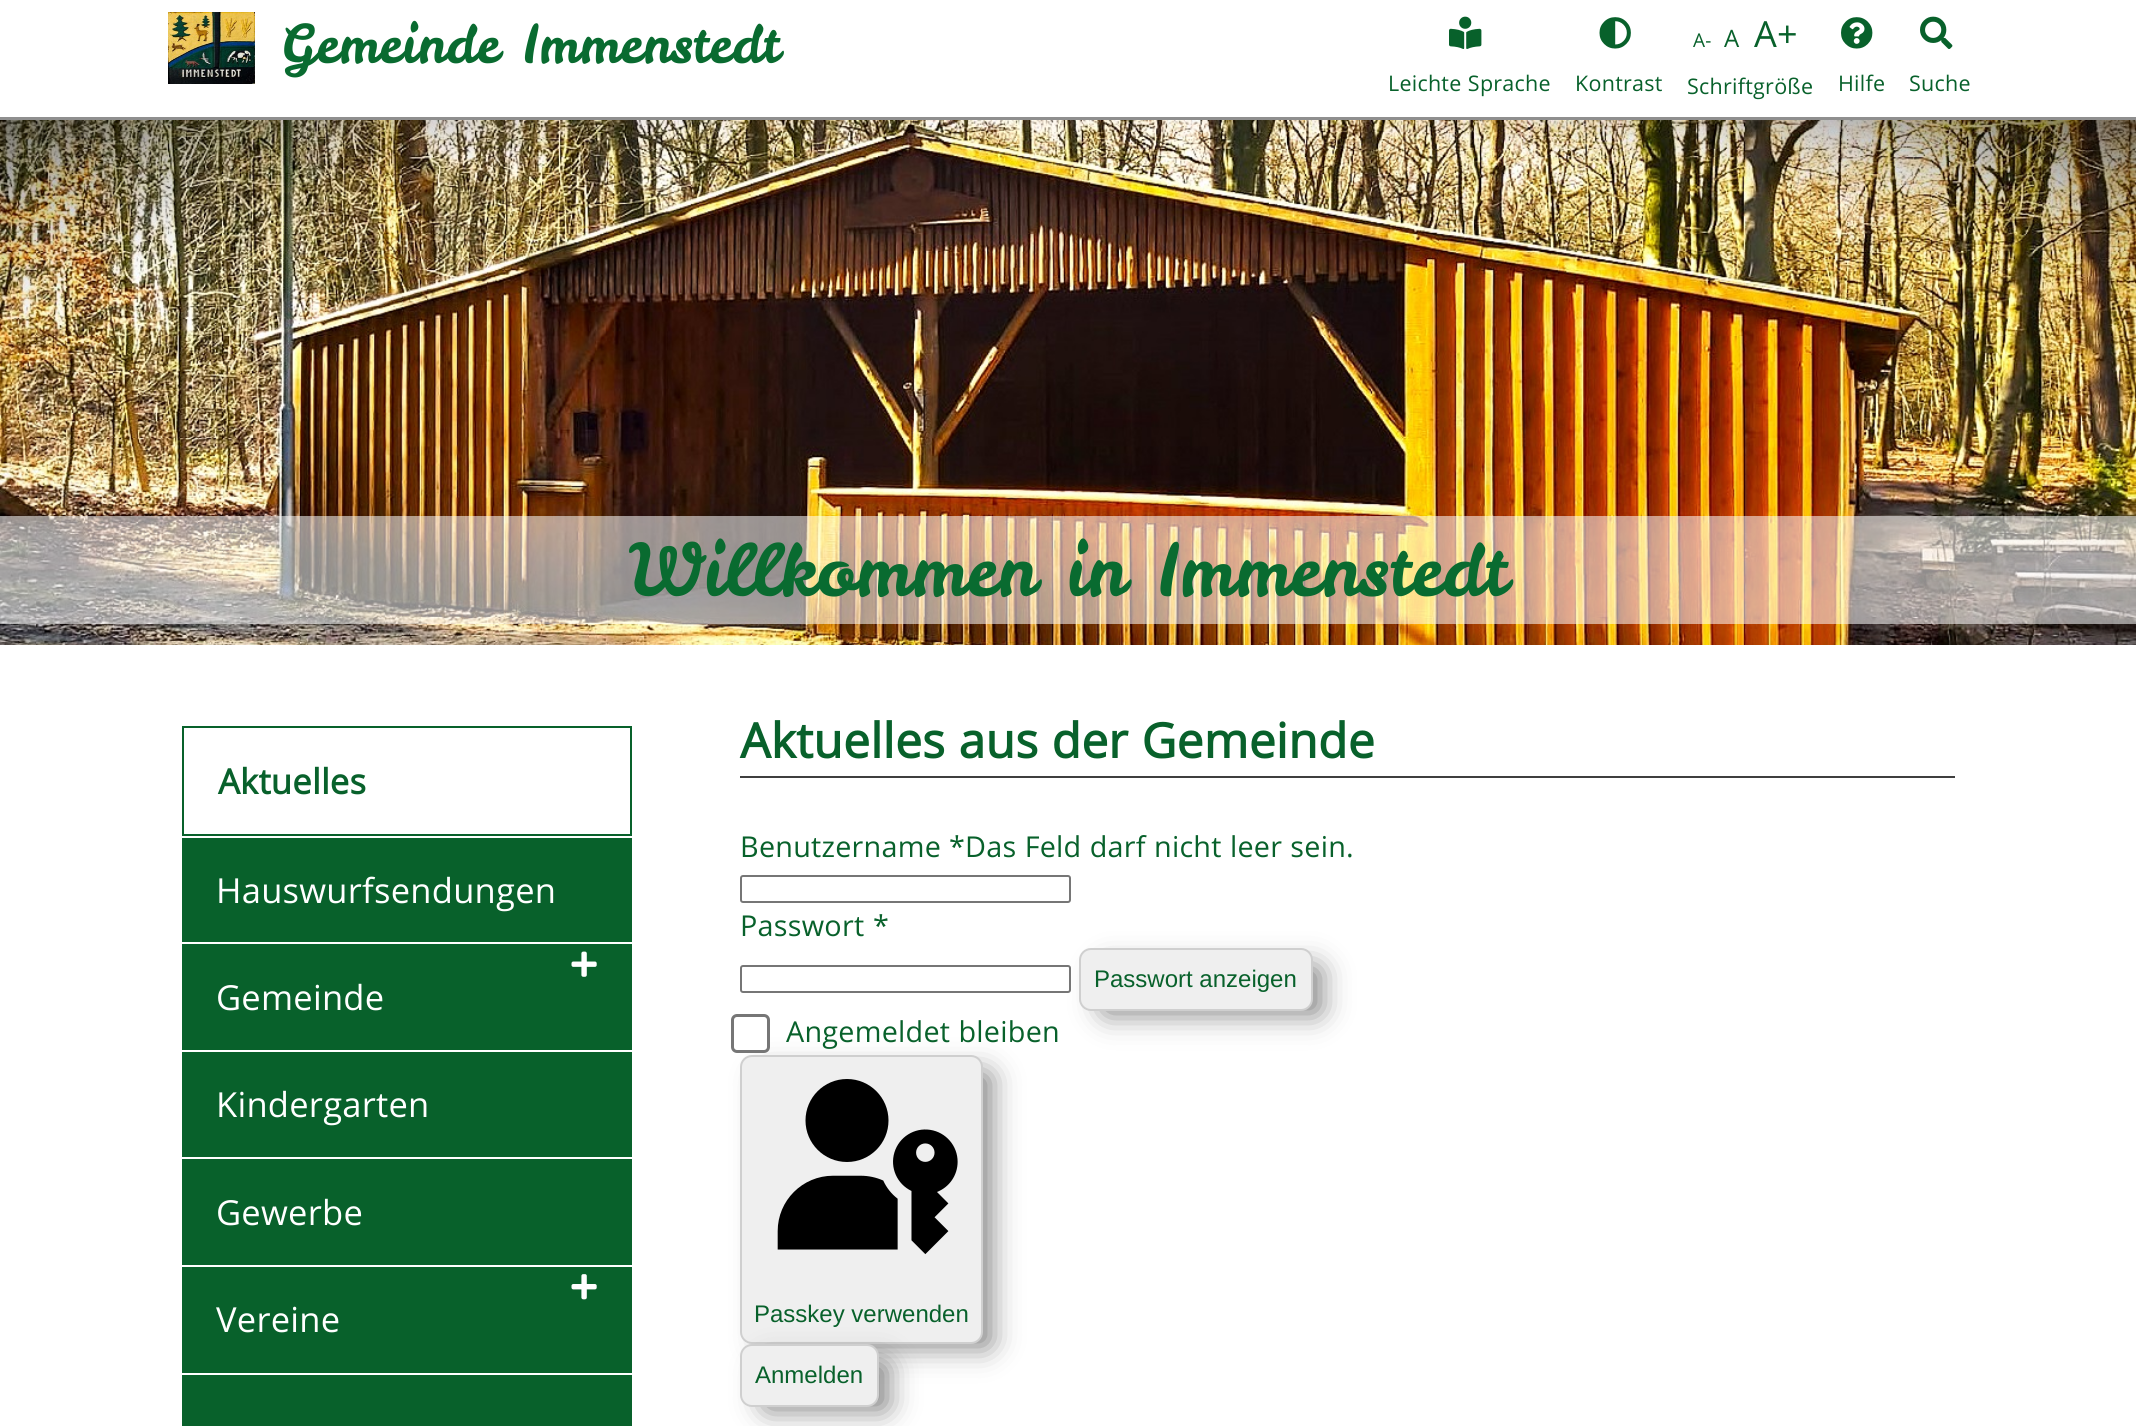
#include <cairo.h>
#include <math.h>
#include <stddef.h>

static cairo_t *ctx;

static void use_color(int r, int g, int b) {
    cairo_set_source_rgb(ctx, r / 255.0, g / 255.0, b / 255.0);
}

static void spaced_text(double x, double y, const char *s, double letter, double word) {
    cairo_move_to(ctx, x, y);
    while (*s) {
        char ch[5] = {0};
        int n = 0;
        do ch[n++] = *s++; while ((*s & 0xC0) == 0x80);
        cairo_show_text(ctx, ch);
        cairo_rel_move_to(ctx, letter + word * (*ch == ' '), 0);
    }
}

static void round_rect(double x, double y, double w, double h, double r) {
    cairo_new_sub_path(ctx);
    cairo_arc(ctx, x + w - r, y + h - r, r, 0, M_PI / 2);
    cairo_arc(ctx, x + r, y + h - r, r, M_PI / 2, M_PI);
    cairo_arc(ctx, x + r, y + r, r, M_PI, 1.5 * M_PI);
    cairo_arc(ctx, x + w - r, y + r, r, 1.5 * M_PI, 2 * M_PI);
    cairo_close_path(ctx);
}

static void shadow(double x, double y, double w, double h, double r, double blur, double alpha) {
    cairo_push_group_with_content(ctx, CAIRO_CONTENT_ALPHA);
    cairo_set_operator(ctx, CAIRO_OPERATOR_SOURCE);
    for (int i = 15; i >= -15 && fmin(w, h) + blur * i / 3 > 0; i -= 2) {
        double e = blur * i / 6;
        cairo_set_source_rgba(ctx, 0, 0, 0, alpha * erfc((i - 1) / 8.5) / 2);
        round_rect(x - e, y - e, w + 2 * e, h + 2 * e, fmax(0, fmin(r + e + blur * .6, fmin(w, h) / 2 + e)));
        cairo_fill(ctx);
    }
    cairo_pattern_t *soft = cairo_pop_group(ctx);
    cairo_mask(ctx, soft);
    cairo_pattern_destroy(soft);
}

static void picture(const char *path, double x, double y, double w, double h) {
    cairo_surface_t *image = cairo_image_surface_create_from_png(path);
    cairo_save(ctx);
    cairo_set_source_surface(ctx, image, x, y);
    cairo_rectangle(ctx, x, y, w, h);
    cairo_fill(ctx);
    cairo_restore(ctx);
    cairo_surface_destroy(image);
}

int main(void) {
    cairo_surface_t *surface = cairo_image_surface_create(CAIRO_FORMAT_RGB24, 2136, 1426);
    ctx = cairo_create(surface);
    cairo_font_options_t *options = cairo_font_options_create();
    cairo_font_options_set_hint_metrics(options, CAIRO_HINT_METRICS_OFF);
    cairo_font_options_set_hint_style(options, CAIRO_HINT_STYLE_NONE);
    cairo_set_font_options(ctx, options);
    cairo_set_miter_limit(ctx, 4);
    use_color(255, 255, 255);
    cairo_paint(ctx);
    use_color(143, 143, 143);
    cairo_rectangle(ctx, 0, 117, 2136, 3);
    cairo_fill(ctx);
    picture("img1.png", 168, 12, 87, 72);
    cairo_select_font_face(ctx, "Leckerli One", CAIRO_FONT_SLANT_NORMAL, CAIRO_FONT_WEIGHT_NORMAL);
    cairo_set_font_size(ctx, 52.75);
    use_color(9, 107, 48);
    spaced_text(281, 63, "Gemeinde Immenstedt", 0.25, 0.5);
    picture("img2.png", 1449, 16, 33, 33);
    cairo_select_font_face(ctx, "Open Sans", CAIRO_FONT_SLANT_NORMAL, CAIRO_FONT_WEIGHT_NORMAL);
    cairo_set_font_size(ctx, 21.5);
    use_color(8, 97, 43);
    spaced_text(1388, 91, "Leichte Sprache", 0.25, 0.5);
    picture("img3.png", 1599, 17, 32, 32);
    spaced_text(1575, 91, "Kontrast", 0.25, 0);
    cairo_set_font_size(ctx, 19);
    spaced_text(1693, 47, "A-", 0.25, 0);
    cairo_set_font_size(ctx, 24);
    spaced_text(1724, 47, "A", 0.25, 0);
    cairo_set_font_size(ctx, 36);
    spaced_text(1754, 47, "A+", 0.25, 0);
    cairo_set_font_size(ctx, 21.5);
    spaced_text(1687, 94, "Schriftgröße", 0.25, 0);
    picture("img4.png", 1841, 17, 32, 32);
    spaced_text(1838, 91, "Hilfe", 0.25, 0);
    picture("img5.png", 1920, 16, 33, 33);
    spaced_text(1909, 91, "Suche", 0.25, 0);
    picture("img6.png", 0, 120, 2136, 525);
    cairo_set_source_rgba(ctx, 1, 1, 1, 0.55);
    cairo_rectangle(ctx, 0, 516, 2136, 108);
    cairo_fill(ctx);
    cairo_select_font_face(ctx, "Leckerli One", CAIRO_FONT_SLANT_NORMAL, CAIRO_FONT_WEIGHT_NORMAL);
    cairo_set_font_size(ctx, 72);
    use_color(9, 107, 48);
    spaced_text(629, 596, "Willkommen in Immenstedt", 0.25, 0.5);
    use_color(8, 97, 43);
    cairo_rectangle(ctx, 182, 838, 450, 588);
    cairo_fill(ctx);
    cairo_rectangle(ctx, 183, 727, 448, 108);
    cairo_stroke(ctx);
    cairo_select_font_face(ctx, "Open Sans", CAIRO_FONT_SLANT_NORMAL, CAIRO_FONT_WEIGHT_BOLD);
    cairo_set_font_size(ctx, 34.5);
    spaced_text(218, 794, "Aktuelles", 0.25, 0);
    use_color(255, 255, 255);
    cairo_rectangle(ctx, 182, 942, 450, 2);
    cairo_fill(ctx);
    cairo_select_font_face(ctx, "Open Sans", CAIRO_FONT_SLANT_NORMAL, CAIRO_FONT_WEIGHT_NORMAL);
    spaced_text(216, 903, "Hauswurfsendungen", 0.25, 0);
    cairo_rectangle(ctx, 182, 1050, 450, 2);
    cairo_fill(ctx);
    picture("img7.png", 571, 951, 26, 26);
    spaced_text(216, 1010, "Gemeinde", 0.25, 0);
    cairo_rectangle(ctx, 182, 1157, 450, 2);
    cairo_fill(ctx);
    spaced_text(216, 1117, "Kindergarten", 0.25, 0);
    cairo_rectangle(ctx, 182, 1265, 450, 2);
    cairo_fill(ctx);
    spaced_text(216, 1225, "Gewerbe", 0.25, 0);
    cairo_rectangle(ctx, 182, 1373, 450, 2);
    cairo_fill(ctx);
    picture("img8.png", 571, 1274, 26, 26);
    spaced_text(216, 1332, "Vereine", 0.25, 0);
    use_color(63, 63, 63);
    cairo_rectangle(ctx, 740, 776, 1215, 2);
    cairo_fill(ctx);
    cairo_select_font_face(ctx, "Open Sans", CAIRO_FONT_SLANT_NORMAL, CAIRO_FONT_WEIGHT_BOLD);
    cairo_set_font_size(ctx, 48);
    use_color(8, 97, 43);
    spaced_text(740, 758, "Aktuelles aus der Gemeinde", 0.25, 0.5);
    cairo_select_font_face(ctx, "Open Sans", CAIRO_FONT_SLANT_NORMAL, CAIRO_FONT_WEIGHT_NORMAL);
    cairo_set_font_size(ctx, 28.75);
    spaced_text(740, 857, "Benutzername", 0.25, 0);
    spaced_text(949, 857, "*", 0.25, 0);
    spaced_text(965, 857, "Das Feld darf nicht leer sein.", 0.25, 0.5);
    round_rect(741, 876, 329, 26, 2);
    use_color(118, 118, 118);
    cairo_stroke(ctx);
    use_color(8, 97, 43);
    spaced_text(740, 936, "Passwort", 0.25, 0);
    spaced_text(873, 936, "*", 0.25, 0);
    round_rect(741, 966, 329, 26, 2);
    use_color(118, 118, 118);
    cairo_stroke(ctx);
    use_color(80, 80, 80);
    shadow(1104, 968, 216, 45, 3, 15, 0.76);
    use_color(239, 239, 239);
    round_rect(1080, 949, 232, 61, 11);
    cairo_fill_preserve(ctx);
    use_color(207, 207, 207);
    cairo_stroke(ctx);
    cairo_select_font_face(ctx, "Liberation Sans", CAIRO_FONT_SLANT_NORMAL, CAIRO_FONT_WEIGHT_NORMAL);
    cairo_set_font_size(ctx, 24);
    use_color(8, 97, 43);
    cairo_move_to(ctx, 1094, 987);
    cairo_show_text(ctx, "Passwort anzeigen");
    use_color(80, 80, 80);
    shadow(765, 1074, 225, 272, 3, 15, 0.76);
    use_color(255, 255, 255);
    round_rect(732.5, 1015.5, 36, 36, 4.5);
    cairo_fill_preserve(ctx);
    use_color(118, 118, 118);
    cairo_set_line_width(ctx, 3);
    cairo_stroke(ctx);
    cairo_select_font_face(ctx, "Open Sans", CAIRO_FONT_SLANT_NORMAL, CAIRO_FONT_WEIGHT_NORMAL);
    cairo_set_font_size(ctx, 28.75);
    use_color(8, 97, 43);
    spaced_text(786, 1042, "Angemeldet bleiben", 0.25, 0.5);
    use_color(239, 239, 239);
    round_rect(741, 1056, 241, 287, 11);
    cairo_fill_preserve(ctx);
    use_color(207, 207, 207);
    cairo_set_line_width(ctx, 2);
    cairo_stroke(ctx);
    picture("img9.png", 777, 1079, 181, 176);
    cairo_select_font_face(ctx, "Liberation Sans", CAIRO_FONT_SLANT_NORMAL, CAIRO_FONT_WEIGHT_NORMAL);
    cairo_set_font_size(ctx, 24);
    use_color(8, 97, 43);
    cairo_move_to(ctx, 754, 1322);
    cairo_show_text(ctx, "Passkey verwenden");
    use_color(80, 80, 80);
    shadow(765, 1364, 122, 45, 3, 15, 0.76);
    use_color(239, 239, 239);
    round_rect(741, 1345, 137, 61, 11);
    cairo_fill_preserve(ctx);
    use_color(207, 207, 207);
    cairo_stroke(ctx);
    use_color(8, 97, 43);
    cairo_move_to(ctx, 755, 1383);
    cairo_show_text(ctx, "Anmelden");
    cairo_surface_write_to_png(surface, "result.png");
    cairo_font_options_destroy(options);
    cairo_destroy(ctx);
    cairo_surface_destroy(surface);
    return 0;
}
